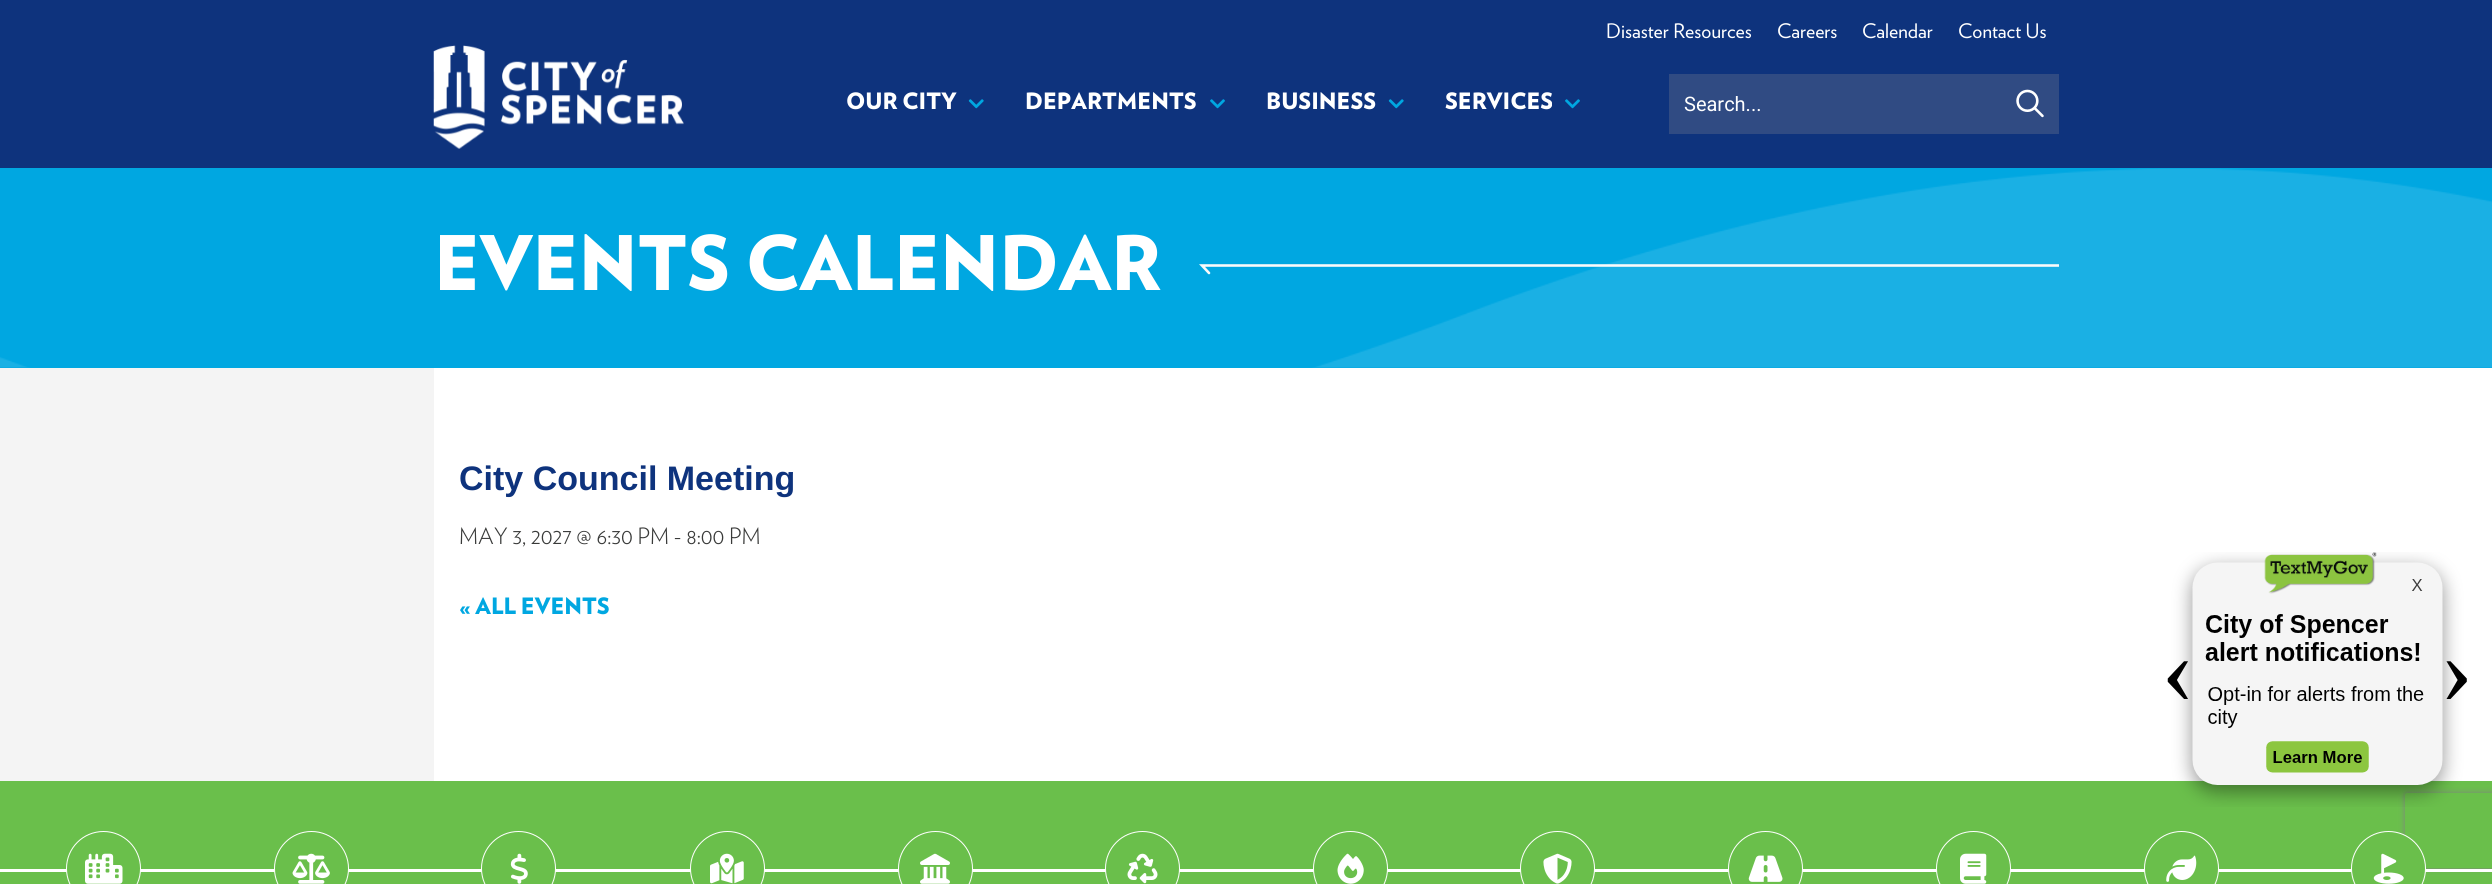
#include <cairo.h>
#include <math.h>
#include <stddef.h>

static cairo_t *ctx;

static void use_color(int r, int g, int b) {
    cairo_set_source_rgb(ctx, r / 255.0, g / 255.0, b / 255.0);
}

static void round_rect(double x, double y, double w, double h, double r) {
    cairo_new_sub_path(ctx);
    cairo_arc(ctx, x + w - r, y + h - r, r, 0, M_PI / 2);
    cairo_arc(ctx, x + r, y + h - r, r, M_PI / 2, M_PI);
    cairo_arc(ctx, x + r, y + r, r, M_PI, 1.5 * M_PI);
    cairo_arc(ctx, x + w - r, y + r, r, 1.5 * M_PI, 2 * M_PI);
    cairo_close_path(ctx);
}

static void shadow(double x, double y, double w, double h, double r, double blur, double alpha) {
    cairo_push_group_with_content(ctx, CAIRO_CONTENT_ALPHA);
    cairo_set_operator(ctx, CAIRO_OPERATOR_SOURCE);
    for (int i = 15; i >= -15 && fmin(w, h) + blur * i / 3 > 0; i -= 2) {
        double e = blur * i / 6;
        cairo_set_source_rgba(ctx, 0, 0, 0, alpha * erfc((i - 1) / 8.5) / 2);
        round_rect(x - e, y - e, w + 2 * e, h + 2 * e, fmax(0, fmin(r + e + blur * .6, fmin(w, h) / 2 + e)));
        cairo_fill(ctx);
    }
    cairo_pattern_t *soft = cairo_pop_group(ctx);
    cairo_mask(ctx, soft);
    cairo_pattern_destroy(soft);
}

static void picture(const char *path, double x, double y, double w, double h) {
    cairo_surface_t *image = cairo_image_surface_create_from_png(path);
    cairo_save(ctx);
    cairo_set_source_surface(ctx, image, x, y);
    cairo_rectangle(ctx, x, y, w, h);
    cairo_fill(ctx);
    cairo_restore(ctx);
    cairo_surface_destroy(image);
}

int main(void) {
    cairo_surface_t *surface = cairo_image_surface_create(CAIRO_FORMAT_RGB24, 2492, 884);
    ctx = cairo_create(surface);
    cairo_font_options_t *options = cairo_font_options_create();
    cairo_font_options_set_hint_metrics(options, CAIRO_HINT_METRICS_OFF);
    cairo_font_options_set_hint_style(options, CAIRO_HINT_STYLE_NONE);
    cairo_set_font_options(ctx, options);
    cairo_set_miter_limit(ctx, 4);
    use_color(14, 51, 125);
    cairo_paint(ctx);
    picture("img1.png", 433, 45, 251, 104);
    cairo_select_font_face(ctx, "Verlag", CAIRO_FONT_SLANT_NORMAL, CAIRO_FONT_WEIGHT_NORMAL);
    cairo_set_font_size(ctx, 20);
    use_color(255, 255, 255);
    cairo_move_to(ctx, 1606, 38);
    cairo_show_text(ctx, "Disaster Resources");
    cairo_move_to(ctx, 1777, 38);
    cairo_show_text(ctx, "Careers");
    cairo_move_to(ctx, 1862, 38);
    cairo_show_text(ctx, "Calendar");
    cairo_move_to(ctx, 1958, 38);
    cairo_show_text(ctx, "Contact Us");
    cairo_select_font_face(ctx, "Verlag Black", CAIRO_FONT_SLANT_NORMAL, CAIRO_FONT_WEIGHT_NORMAL);
    cairo_set_font_size(ctx, 22.5);
    cairo_move_to(ctx, 846, 109);
    cairo_show_text(ctx, "OUR CITY");
    picture("img2.png", 968, 99, 16, 10);
    cairo_move_to(ctx, 1025, 109);
    cairo_show_text(ctx, "DEPARTMENTS");
    picture("img3.png", 1210, 99, 15, 10);
    cairo_move_to(ctx, 1266, 109);
    cairo_show_text(ctx, "BUSINESS");
    picture("img2.png", 1388, 99, 16, 10);
    cairo_move_to(ctx, 1445, 109);
    cairo_show_text(ctx, "SERVICES");
    picture("img3.png", 1565, 99, 15, 10);
    use_color(48, 75, 131);
    cairo_rectangle(ctx, 1669, 74, 390, 60);
    cairo_fill(ctx);
    cairo_select_font_face(ctx, "Roboto", CAIRO_FONT_SLANT_NORMAL, CAIRO_FONT_WEIGHT_NORMAL);
    cairo_set_font_size(ctx, 20);
    use_color(255, 255, 255);
    cairo_move_to(ctx, 1684, 111);
    cairo_show_text(ctx, "Search...");
    picture("img4.png", 2016, 89, 28, 29);
    use_color(0, 167, 225);
    cairo_rectangle(ctx, 0, 168, 2492, 200);
    cairo_fill(ctx);
    picture("img5.png", 0, 168, 2492, 200);
    cairo_select_font_face(ctx, "Verlag Black", CAIRO_FONT_SLANT_NORMAL, CAIRO_FONT_WEIGHT_NORMAL);
    cairo_set_font_size(ctx, 75);
    use_color(255, 255, 255);
    cairo_move_to(ctx, 434, 290);
    cairo_show_text(ctx, "EVENTS CALENDAR");
    cairo_save(ctx);
    cairo_rectangle(ctx, 1199, 264, 860, 11);
    cairo_clip(ctx);
    cairo_new_path(ctx);
    cairo_move_to(ctx, 2322.5, 265.5);
    cairo_line_to(ctx, 1202, 265.5);
    cairo_line_to(ctx, 1209, 273);
    use_color(250, 250, 250);
    cairo_set_line_width(ctx, 2.6);
    cairo_set_line_cap(ctx, CAIRO_LINE_CAP_ROUND);
    cairo_stroke(ctx);
    cairo_restore(ctx);
    use_color(244, 244, 244);
    cairo_rectangle(ctx, 0, 368, 434, 413);
    cairo_fill(ctx);
    use_color(255, 255, 255);
    cairo_rectangle(ctx, 434, 368, 2058, 413);
    cairo_fill(ctx);
    cairo_select_font_face(ctx, "Liberation Sans", CAIRO_FONT_SLANT_NORMAL, CAIRO_FONT_WEIGHT_BOLD);
    cairo_set_font_size(ctx, 34);
    use_color(14, 51, 125);
    cairo_move_to(ctx, 459, 490);
    cairo_show_text(ctx, "City Council Meeting");
    cairo_select_font_face(ctx, "Verlag Light", CAIRO_FONT_SLANT_NORMAL, CAIRO_FONT_WEIGHT_NORMAL);
    cairo_set_font_size(ctx, 22.5);
    use_color(57, 58, 57);
    cairo_move_to(ctx, 459, 544);
    cairo_show_text(ctx, "MAY 3, 2027 @ 6:30 PM - 8:00 PM");
    cairo_select_font_face(ctx, "Verlag Black", CAIRO_FONT_SLANT_NORMAL, CAIRO_FONT_WEIGHT_NORMAL);
    use_color(0, 167, 225);
    cairo_move_to(ctx, 459, 614);
    cairo_show_text(ctx, "« ALL EVENTS");
    use_color(106, 191, 75);
    cairo_rectangle(ctx, 0, 781, 2492, 103);
    cairo_fill(ctx);
    cairo_save(ctx);
    cairo_set_fill_rule(ctx, CAIRO_FILL_RULE_EVEN_ODD);
    cairo_new_path(ctx);
    cairo_move_to(ctx, 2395, 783);
    cairo_line_to(ctx, 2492, 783);
    cairo_line_to(ctx, 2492, 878);
    cairo_line_to(ctx, 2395, 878);
    cairo_close_path(ctx);
    cairo_move_to(ctx, 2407.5, 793);
    cairo_line_to(ctx, 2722.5, 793);
    cairo_curve_to(ctx, 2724, 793, 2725, 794, 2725, 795.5);
    cairo_line_to(ctx, 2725, 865.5);
    cairo_curve_to(ctx, 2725, 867, 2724, 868, 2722.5, 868);
    cairo_line_to(ctx, 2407.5, 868);
    cairo_curve_to(ctx, 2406, 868, 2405, 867, 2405, 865.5);
    cairo_line_to(ctx, 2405, 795.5);
    cairo_curve_to(ctx, 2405, 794, 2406, 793, 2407.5, 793);
    cairo_close_path(ctx);
    cairo_clip(ctx);
    use_color(128, 128, 128);
    shadow(2405, 793, 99, 75, 2.5, 3, 1);
    cairo_restore(ctx);
    picture("img6.png", 2167, 552, 300, 255);
    use_color(255, 255, 255);
    cairo_rectangle(ctx, 0, 869, 2492, 3);
    cairo_fill(ctx);
    use_color(106, 191, 75);
    cairo_arc(ctx, 103.5, 868.5, 37, 0, 2 * M_PI);
    cairo_fill_preserve(ctx);
    use_color(255, 255, 255);
    cairo_set_line_width(ctx, 1);
    cairo_stroke(ctx);
    picture("img7.png", 85, 853, 38, 31);
    use_color(106, 191, 75);
    cairo_arc(ctx, 311.5, 868.5, 37, 0, 2 * M_PI);
    cairo_fill_preserve(ctx);
    use_color(255, 255, 255);
    cairo_stroke(ctx);
    picture("img8.png", 292, 853, 38, 31);
    use_color(106, 191, 75);
    cairo_arc(ctx, 518.5, 868.5, 37, 0, 2 * M_PI);
    cairo_fill_preserve(ctx);
    use_color(255, 255, 255);
    cairo_stroke(ctx);
    picture("img9.png", 510, 853, 18, 31);
    use_color(106, 191, 75);
    cairo_arc(ctx, 727.5, 868.5, 37, 0, 2 * M_PI);
    cairo_fill_preserve(ctx);
    use_color(255, 255, 255);
    cairo_stroke(ctx);
    picture("img10.png", 710, 853, 34, 31);
    use_color(106, 191, 75);
    cairo_arc(ctx, 935.5, 868.5, 37, 0, 2 * M_PI);
    cairo_fill_preserve(ctx);
    use_color(255, 255, 255);
    cairo_stroke(ctx);
    picture("img11.png", 920, 853, 30, 31);
    use_color(106, 191, 75);
    cairo_arc(ctx, 1142.5, 868.5, 37, 0, 2 * M_PI);
    cairo_fill_preserve(ctx);
    use_color(255, 255, 255);
    cairo_stroke(ctx);
    picture("img12.png", 1127, 853, 31, 31);
    use_color(106, 191, 75);
    cairo_arc(ctx, 1350.5, 868.5, 37, 0, 2 * M_PI);
    cairo_fill_preserve(ctx);
    use_color(255, 255, 255);
    cairo_stroke(ctx);
    picture("img13.png", 1337, 853, 27, 31);
    use_color(106, 191, 75);
    cairo_arc(ctx, 1557.5, 868.5, 37, 0, 2 * M_PI);
    cairo_fill_preserve(ctx);
    use_color(255, 255, 255);
    cairo_stroke(ctx);
    picture("img14.png", 1543, 853, 29, 31);
    use_color(106, 191, 75);
    cairo_arc(ctx, 1765.5, 868.5, 37, 0, 2 * M_PI);
    cairo_fill_preserve(ctx);
    use_color(255, 255, 255);
    cairo_stroke(ctx);
    picture("img15.png", 1748, 855, 35, 27);
    use_color(106, 191, 75);
    cairo_arc(ctx, 1973.5, 868.5, 37, 0, 2 * M_PI);
    cairo_fill_preserve(ctx);
    use_color(255, 255, 255);
    cairo_stroke(ctx);
    picture("img16.png", 1960, 853, 27, 31);
    use_color(106, 191, 75);
    cairo_arc(ctx, 2181.5, 868.5, 37, 0, 2 * M_PI);
    cairo_fill_preserve(ctx);
    use_color(255, 255, 255);
    cairo_stroke(ctx);
    picture("img17.png", 2166, 855, 31, 27);
    use_color(106, 191, 75);
    cairo_arc(ctx, 2388.5, 868.5, 37, 0, 2 * M_PI);
    cairo_fill_preserve(ctx);
    use_color(255, 255, 255);
    cairo_stroke(ctx);
    picture("img18.png", 2373, 853, 31, 31);
    cairo_surface_write_to_png(surface, "result.png");
    cairo_font_options_destroy(options);
    cairo_destroy(ctx);
    cairo_surface_destroy(surface);
    return 0;
}
